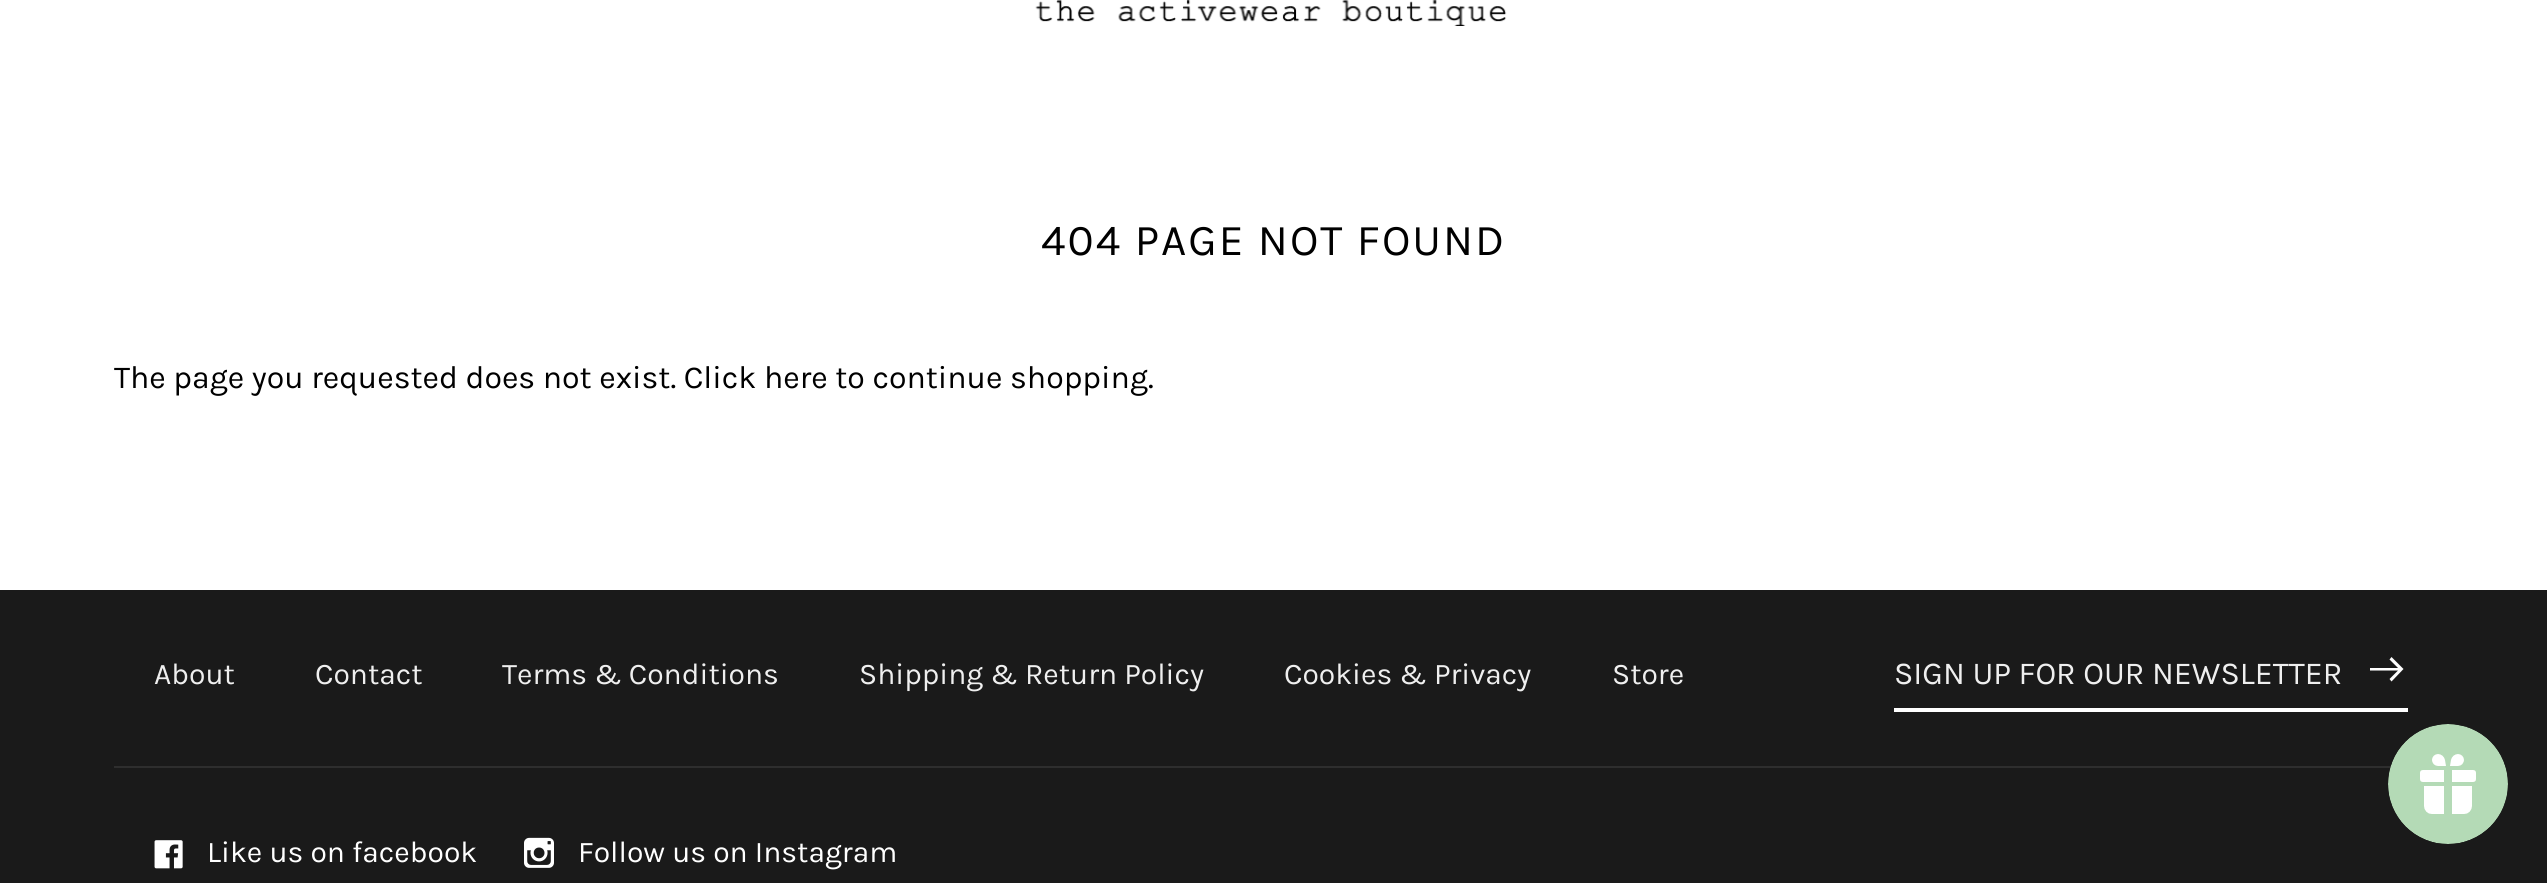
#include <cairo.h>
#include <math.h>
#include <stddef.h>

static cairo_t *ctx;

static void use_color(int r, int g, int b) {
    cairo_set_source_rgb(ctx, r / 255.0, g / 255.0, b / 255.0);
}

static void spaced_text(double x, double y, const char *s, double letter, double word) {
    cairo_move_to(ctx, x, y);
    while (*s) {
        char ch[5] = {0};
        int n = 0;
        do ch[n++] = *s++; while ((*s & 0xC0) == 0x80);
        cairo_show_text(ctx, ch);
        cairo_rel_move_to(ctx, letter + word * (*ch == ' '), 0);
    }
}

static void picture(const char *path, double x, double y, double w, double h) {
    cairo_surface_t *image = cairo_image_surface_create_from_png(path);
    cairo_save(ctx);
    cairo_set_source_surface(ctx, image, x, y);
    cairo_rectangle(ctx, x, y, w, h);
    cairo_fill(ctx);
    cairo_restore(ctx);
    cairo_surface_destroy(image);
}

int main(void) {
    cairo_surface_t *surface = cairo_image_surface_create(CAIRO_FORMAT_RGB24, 2547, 883);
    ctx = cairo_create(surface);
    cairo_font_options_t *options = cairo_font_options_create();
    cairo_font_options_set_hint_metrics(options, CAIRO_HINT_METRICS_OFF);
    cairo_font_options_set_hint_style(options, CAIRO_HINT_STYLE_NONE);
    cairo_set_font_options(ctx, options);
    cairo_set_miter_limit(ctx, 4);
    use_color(255, 255, 255);
    cairo_paint(ctx);
    picture("img1.png", 1035, 0, 472, 26);
    cairo_select_font_face(ctx, "Karla", CAIRO_FONT_SLANT_NORMAL, CAIRO_FONT_WEIGHT_NORMAL);
    cairo_set_font_size(ctx, 44);
    use_color(0, 0, 0);
    spaced_text(1041, 255, "404 PAGE NOT FOUND", 2, 0);
    cairo_set_font_size(ctx, 32);
    cairo_move_to(ctx, 114, 388);
    cairo_show_text(ctx, "The page you requested does not exist. Click here to continue shopping.");
    use_color(26, 26, 26);
    cairo_rectangle(ctx, 0, 590, 2547, 293);
    cairo_fill(ctx);
    cairo_set_font_size(ctx, 30);
    use_color(239, 239, 239);
    cairo_move_to(ctx, 154, 684);
    cairo_show_text(ctx, "About");
    cairo_move_to(ctx, 315, 684);
    cairo_show_text(ctx, "Contact");
    cairo_move_to(ctx, 502, 684);
    cairo_show_text(ctx, "Terms & Conditions");
    cairo_move_to(ctx, 859, 684);
    cairo_show_text(ctx, "Shipping & Return Policy");
    cairo_move_to(ctx, 1284, 684);
    cairo_show_text(ctx, "Cookies & Privacy");
    cairo_move_to(ctx, 1612, 684);
    cairo_show_text(ctx, "Store");
    use_color(255, 255, 255);
    cairo_rectangle(ctx, 1894, 708, 514, 4);
    cairo_fill(ctx);
    cairo_set_font_size(ctx, 32);
    use_color(239, 239, 239);
    cairo_move_to(ctx, 1894, 684);
    cairo_show_text(ctx, "SIGN UP FOR OUR NEWSLETTER");
    use_color(255, 255, 255);
    cairo_new_path(ctx);
    cairo_move_to(ctx, 2403.5, 669);
    cairo_line_to(ctx, 2391.5, 657);
    cairo_line_to(ctx, 2389.5, 659.5);
    cairo_line_to(ctx, 2398, 668);
    cairo_line_to(ctx, 2370, 668);
    cairo_line_to(ctx, 2370, 670.5);
    cairo_line_to(ctx, 2398, 670.5);
    cairo_line_to(ctx, 2389.5, 679);
    cairo_line_to(ctx, 2391.5, 681.5);
    cairo_close_path(ctx);
    cairo_fill(ctx);
    use_color(46, 46, 46);
    cairo_rectangle(ctx, 114, 766, 2277, 2);
    cairo_fill(ctx);
    picture("img2.png", 154, 840, 29, 29);
    cairo_set_font_size(ctx, 30);
    use_color(255, 255, 255);
    cairo_move_to(ctx, 207, 862);
    cairo_show_text(ctx, "Like us on facebook");
    picture("img3.png", 524, 837, 30, 31);
    cairo_move_to(ctx, 578, 862);
    cairo_show_text(ctx, "Follow us on Instagram");
    picture("img4.png", 2388, 724, 120, 120);
    cairo_surface_write_to_png(surface, "result.png");
    cairo_font_options_destroy(options);
    cairo_destroy(ctx);
    cairo_surface_destroy(surface);
    return 0;
}
